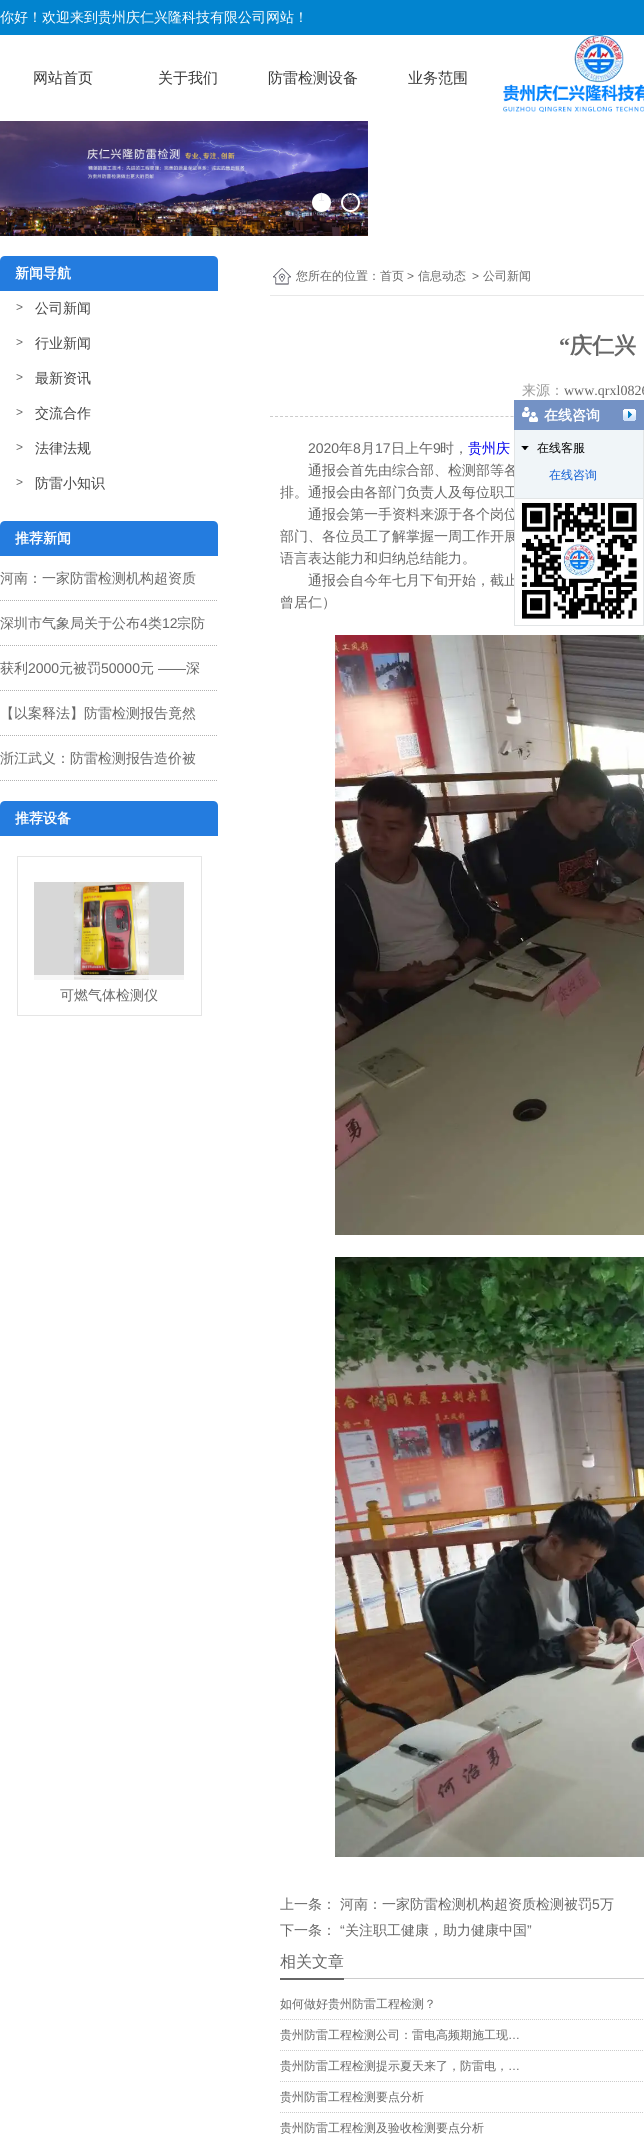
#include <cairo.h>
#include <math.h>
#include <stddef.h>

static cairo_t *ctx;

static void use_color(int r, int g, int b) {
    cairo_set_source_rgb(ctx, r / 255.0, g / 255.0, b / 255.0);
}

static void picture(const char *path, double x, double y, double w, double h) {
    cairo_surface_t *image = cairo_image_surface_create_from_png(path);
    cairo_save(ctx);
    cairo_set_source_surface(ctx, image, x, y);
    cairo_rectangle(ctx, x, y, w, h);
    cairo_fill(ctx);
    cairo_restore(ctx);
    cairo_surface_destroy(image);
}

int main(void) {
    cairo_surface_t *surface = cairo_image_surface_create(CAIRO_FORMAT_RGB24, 644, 2141);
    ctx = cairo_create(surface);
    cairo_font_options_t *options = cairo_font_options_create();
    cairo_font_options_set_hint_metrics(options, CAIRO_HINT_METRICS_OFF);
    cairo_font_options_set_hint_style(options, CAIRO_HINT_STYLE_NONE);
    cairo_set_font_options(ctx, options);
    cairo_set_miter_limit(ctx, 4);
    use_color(255, 255, 255);
    cairo_paint(ctx);
    use_color(2, 132, 207);
    cairo_rectangle(ctx, 0, 0, 644, 35);
    cairo_fill(ctx);
    cairo_select_font_face(ctx, "WenQuanYi Zen Hei Medium", CAIRO_FONT_SLANT_NORMAL, CAIRO_FONT_WEIGHT_NORMAL);
    cairo_set_font_size(ctx, 14);
    use_color(255, 255, 255);
    cairo_move_to(ctx, 0, 22);
    cairo_show_text(ctx, "你好！欢迎来到贵州庆仁兴隆科技有限公司网站！");
    cairo_set_font_size(ctx, 15);
    use_color(56, 56, 56);
    cairo_move_to(ctx, 33, 83);
    cairo_show_text(ctx, "网站首页");
    cairo_move_to(ctx, 158, 83);
    cairo_show_text(ctx, "关于我们");
    cairo_move_to(ctx, 268, 83);
    cairo_show_text(ctx, "防雷检测设备");
    cairo_move_to(ctx, 408, 83);
    cairo_show_text(ctx, "业务范围");
    picture("img1.png", 503, 35, 141, 77);
    picture("img2.png", 0, 121, 368, 115);
    use_color(255, 255, 255);
    cairo_arc(ctx, 321.5, 202.5, 8.5, 0, 2 * M_PI);
    cairo_fill_preserve(ctx);
    cairo_stroke(ctx);
    cairo_select_font_face(ctx, "Liberation Sans", CAIRO_FONT_SLANT_NORMAL, CAIRO_FONT_WEIGHT_NORMAL);
    cairo_set_font_size(ctx, 12);
    use_color(234, 234, 238);
    cairo_move_to(ctx, 318, 201);
    cairo_show_text(ctx, "1");
    cairo_new_path(ctx);
    cairo_arc(ctx, 350.5, 202.5, 8.5, 0, 2 * M_PI);
    use_color(255, 255, 255);
    cairo_stroke(ctx);
    use_color(117, 111, 134);
    cairo_move_to(ctx, 347, 201);
    cairo_show_text(ctx, "2");
    use_color(36, 124, 223);
    cairo_new_path(ctx);
    cairo_move_to(ctx, 5, 256);
    cairo_line_to(ctx, 213, 256);
    cairo_curve_to(ctx, 216, 256, 218, 258, 218, 261);
    cairo_line_to(ctx, 218, 291);
    cairo_line_to(ctx, 0, 291);
    cairo_line_to(ctx, 0, 261);
    cairo_curve_to(ctx, 0, 258, 2, 256, 5, 256);
    cairo_close_path(ctx);
    cairo_fill(ctx);
    cairo_select_font_face(ctx, "WenQuanYi Zen Hei", CAIRO_FONT_SLANT_NORMAL, CAIRO_FONT_WEIGHT_BOLD);
    cairo_set_font_size(ctx, 14);
    use_color(255, 255, 255);
    cairo_move_to(ctx, 15, 278);
    cairo_show_text(ctx, "新闻导航");
    cairo_select_font_face(ctx, "Liberation Sans", CAIRO_FONT_SLANT_NORMAL, CAIRO_FONT_WEIGHT_NORMAL);
    cairo_set_font_size(ctx, 12);
    use_color(102, 102, 102);
    cairo_move_to(ctx, 16, 311);
    cairo_show_text(ctx, ">");
    cairo_select_font_face(ctx, "WenQuanYi Zen Hei Medium", CAIRO_FONT_SLANT_NORMAL, CAIRO_FONT_WEIGHT_NORMAL);
    cairo_set_font_size(ctx, 14);
    use_color(68, 68, 68);
    cairo_move_to(ctx, 35, 313);
    cairo_show_text(ctx, "公司新闻");
    cairo_select_font_face(ctx, "Liberation Sans", CAIRO_FONT_SLANT_NORMAL, CAIRO_FONT_WEIGHT_NORMAL);
    cairo_set_font_size(ctx, 12);
    use_color(102, 102, 102);
    cairo_move_to(ctx, 16, 346);
    cairo_show_text(ctx, ">");
    cairo_select_font_face(ctx, "WenQuanYi Zen Hei Medium", CAIRO_FONT_SLANT_NORMAL, CAIRO_FONT_WEIGHT_NORMAL);
    cairo_set_font_size(ctx, 14);
    use_color(68, 68, 68);
    cairo_move_to(ctx, 35, 348);
    cairo_show_text(ctx, "行业新闻");
    cairo_select_font_face(ctx, "Liberation Sans", CAIRO_FONT_SLANT_NORMAL, CAIRO_FONT_WEIGHT_NORMAL);
    cairo_set_font_size(ctx, 12);
    use_color(102, 102, 102);
    cairo_move_to(ctx, 16, 381);
    cairo_show_text(ctx, ">");
    cairo_select_font_face(ctx, "WenQuanYi Zen Hei Medium", CAIRO_FONT_SLANT_NORMAL, CAIRO_FONT_WEIGHT_NORMAL);
    cairo_set_font_size(ctx, 14);
    use_color(68, 68, 68);
    cairo_move_to(ctx, 35, 383);
    cairo_show_text(ctx, "最新资讯");
    cairo_select_font_face(ctx, "Liberation Sans", CAIRO_FONT_SLANT_NORMAL, CAIRO_FONT_WEIGHT_NORMAL);
    cairo_set_font_size(ctx, 12);
    use_color(102, 102, 102);
    cairo_move_to(ctx, 16, 416);
    cairo_show_text(ctx, ">");
    cairo_select_font_face(ctx, "WenQuanYi Zen Hei Medium", CAIRO_FONT_SLANT_NORMAL, CAIRO_FONT_WEIGHT_NORMAL);
    cairo_set_font_size(ctx, 14);
    use_color(68, 68, 68);
    cairo_move_to(ctx, 35, 418);
    cairo_show_text(ctx, "交流合作");
    cairo_select_font_face(ctx, "Liberation Sans", CAIRO_FONT_SLANT_NORMAL, CAIRO_FONT_WEIGHT_NORMAL);
    cairo_set_font_size(ctx, 12);
    use_color(102, 102, 102);
    cairo_move_to(ctx, 16, 451);
    cairo_show_text(ctx, ">");
    cairo_select_font_face(ctx, "WenQuanYi Zen Hei Medium", CAIRO_FONT_SLANT_NORMAL, CAIRO_FONT_WEIGHT_NORMAL);
    cairo_set_font_size(ctx, 14);
    use_color(68, 68, 68);
    cairo_move_to(ctx, 35, 453);
    cairo_show_text(ctx, "法律法规");
    cairo_select_font_face(ctx, "Liberation Sans", CAIRO_FONT_SLANT_NORMAL, CAIRO_FONT_WEIGHT_NORMAL);
    cairo_set_font_size(ctx, 12);
    use_color(102, 102, 102);
    cairo_move_to(ctx, 16, 486);
    cairo_show_text(ctx, ">");
    cairo_select_font_face(ctx, "WenQuanYi Zen Hei Medium", CAIRO_FONT_SLANT_NORMAL, CAIRO_FONT_WEIGHT_NORMAL);
    cairo_set_font_size(ctx, 14);
    use_color(68, 68, 68);
    cairo_move_to(ctx, 35, 488);
    cairo_show_text(ctx, "防雷小知识");
    use_color(36, 124, 223);
    cairo_new_path(ctx);
    cairo_move_to(ctx, 5, 521);
    cairo_line_to(ctx, 213, 521);
    cairo_curve_to(ctx, 216, 521, 218, 523, 218, 526);
    cairo_line_to(ctx, 218, 556);
    cairo_line_to(ctx, 0, 556);
    cairo_line_to(ctx, 0, 526);
    cairo_curve_to(ctx, 0, 523, 2, 521, 5, 521);
    cairo_close_path(ctx);
    cairo_fill(ctx);
    cairo_select_font_face(ctx, "WenQuanYi Zen Hei", CAIRO_FONT_SLANT_NORMAL, CAIRO_FONT_WEIGHT_BOLD);
    use_color(255, 255, 255);
    cairo_move_to(ctx, 15, 543);
    cairo_show_text(ctx, "推荐新闻");
    cairo_new_path(ctx);
    cairo_move_to(ctx, 0, 600.5);
    cairo_line_to(ctx, 218, 600.5);
    use_color(178, 178, 178);
    cairo_set_line_width(ctx, 1);
    cairo_set_dash(ctx, (double[]){1, 1}, 2, 0);
    cairo_stroke(ctx);
    cairo_select_font_face(ctx, "WenQuanYi Zen Hei Medium", CAIRO_FONT_SLANT_NORMAL, CAIRO_FONT_WEIGHT_NORMAL);
    use_color(102, 102, 102);
    cairo_move_to(ctx, 0, 583);
    cairo_show_text(ctx, "河南：一家防雷检测机构超资质");
    cairo_new_path(ctx);
    cairo_move_to(ctx, 0, 645.5);
    cairo_line_to(ctx, 218, 645.5);
    use_color(178, 178, 178);
    cairo_stroke(ctx);
    use_color(102, 102, 102);
    cairo_move_to(ctx, 0, 628);
    cairo_show_text(ctx, "深圳市气象局关于公布");
    cairo_select_font_face(ctx, "Liberation Sans", CAIRO_FONT_SLANT_NORMAL, CAIRO_FONT_WEIGHT_NORMAL);
    cairo_move_to(ctx, 140, 628);
    cairo_show_text(ctx, "4");
    cairo_select_font_face(ctx, "WenQuanYi Zen Hei Medium", CAIRO_FONT_SLANT_NORMAL, CAIRO_FONT_WEIGHT_NORMAL);
    cairo_move_to(ctx, 148, 628);
    cairo_show_text(ctx, "类");
    cairo_select_font_face(ctx, "Liberation Sans", CAIRO_FONT_SLANT_NORMAL, CAIRO_FONT_WEIGHT_NORMAL);
    cairo_move_to(ctx, 162, 628);
    cairo_show_text(ctx, "12");
    cairo_select_font_face(ctx, "WenQuanYi Zen Hei Medium", CAIRO_FONT_SLANT_NORMAL, CAIRO_FONT_WEIGHT_NORMAL);
    cairo_move_to(ctx, 177, 628);
    cairo_show_text(ctx, "宗防");
    cairo_new_path(ctx);
    cairo_move_to(ctx, 0, 690.5);
    cairo_line_to(ctx, 218, 690.5);
    use_color(178, 178, 178);
    cairo_stroke(ctx);
    use_color(102, 102, 102);
    cairo_move_to(ctx, 0, 673);
    cairo_show_text(ctx, "获利");
    cairo_select_font_face(ctx, "Liberation Sans", CAIRO_FONT_SLANT_NORMAL, CAIRO_FONT_WEIGHT_NORMAL);
    cairo_move_to(ctx, 28, 673);
    cairo_show_text(ctx, "2000");
    cairo_select_font_face(ctx, "WenQuanYi Zen Hei Medium", CAIRO_FONT_SLANT_NORMAL, CAIRO_FONT_WEIGHT_NORMAL);
    cairo_move_to(ctx, 59, 673);
    cairo_show_text(ctx, "元被罚");
    cairo_select_font_face(ctx, "Liberation Sans", CAIRO_FONT_SLANT_NORMAL, CAIRO_FONT_WEIGHT_NORMAL);
    cairo_move_to(ctx, 101, 673);
    cairo_show_text(ctx, "50000");
    cairo_select_font_face(ctx, "WenQuanYi Zen Hei Medium", CAIRO_FONT_SLANT_NORMAL, CAIRO_FONT_WEIGHT_NORMAL);
    cairo_move_to(ctx, 140, 673);
    cairo_show_text(ctx, "元");
    cairo_select_font_face(ctx, "Liberation Sans", CAIRO_FONT_SLANT_NORMAL, CAIRO_FONT_WEIGHT_NORMAL);
    cairo_move_to(ctx, 158, 673);
    cairo_show_text(ctx, "——");
    cairo_select_font_face(ctx, "WenQuanYi Zen Hei Medium", CAIRO_FONT_SLANT_NORMAL, CAIRO_FONT_WEIGHT_NORMAL);
    cairo_move_to(ctx, 186, 673);
    cairo_show_text(ctx, "深");
    cairo_new_path(ctx);
    cairo_move_to(ctx, 0, 735.5);
    cairo_line_to(ctx, 218, 735.5);
    use_color(178, 178, 178);
    cairo_stroke(ctx);
    use_color(102, 102, 102);
    cairo_move_to(ctx, 0, 718);
    cairo_show_text(ctx, "【以案释法】防雷检测报告竟然");
    cairo_new_path(ctx);
    cairo_move_to(ctx, 0, 780.5);
    cairo_line_to(ctx, 218, 780.5);
    use_color(178, 178, 178);
    cairo_stroke(ctx);
    use_color(102, 102, 102);
    cairo_move_to(ctx, 0, 763);
    cairo_show_text(ctx, "浙江武义：防雷检测报告造价被");
    use_color(36, 124, 223);
    cairo_new_path(ctx);
    cairo_move_to(ctx, 5, 801);
    cairo_line_to(ctx, 213, 801);
    cairo_curve_to(ctx, 216, 801, 218, 803, 218, 806);
    cairo_line_to(ctx, 218, 836);
    cairo_line_to(ctx, 0, 836);
    cairo_line_to(ctx, 0, 806);
    cairo_curve_to(ctx, 0, 803, 2, 801, 5, 801);
    cairo_close_path(ctx);
    cairo_fill(ctx);
    cairo_select_font_face(ctx, "WenQuanYi Zen Hei", CAIRO_FONT_SLANT_NORMAL, CAIRO_FONT_WEIGHT_BOLD);
    use_color(255, 255, 255);
    cairo_move_to(ctx, 15, 823);
    cairo_show_text(ctx, "推荐设备");
    cairo_rectangle(ctx, 17.5, 856.5, 184, 159);
    use_color(229, 229, 229);
    cairo_set_dash(ctx, NULL, 0, 0);
    cairo_stroke(ctx);
    picture("img3.png", 34, 882, 150, 98);
    cairo_set_source_rgba(ctx, 1, 1, 1, 0.8);
    cairo_rectangle(ctx, 34, 975, 150, 5);
    cairo_fill(ctx);
    cairo_select_font_face(ctx, "WenQuanYi Zen Hei Medium", CAIRO_FONT_SLANT_NORMAL, CAIRO_FONT_WEIGHT_NORMAL);
    use_color(102, 102, 102);
    cairo_move_to(ctx, 60, 1000);
    cairo_show_text(ctx, "可燃气体检测仪");
    picture("img4.png", 273, 268, 18, 17);
    use_color(232, 232, 232);
    cairo_rectangle(ctx, 270, 295, 374, 1);
    cairo_fill(ctx);
    cairo_set_font_size(ctx, 12);
    use_color(102, 102, 102);
    cairo_move_to(ctx, 296, 280);
    cairo_show_text(ctx, "您所在的位置：首页");
    cairo_select_font_face(ctx, "Liberation Sans", CAIRO_FONT_SLANT_NORMAL, CAIRO_FONT_WEIGHT_NORMAL);
    cairo_move_to(ctx, 407, 280);
    cairo_show_text(ctx, ">");
    cairo_select_font_face(ctx, "WenQuanYi Zen Hei Medium", CAIRO_FONT_SLANT_NORMAL, CAIRO_FONT_WEIGHT_NORMAL);
    cairo_move_to(ctx, 418, 280);
    cairo_show_text(ctx, "信息动态");
    cairo_select_font_face(ctx, "Liberation Sans", CAIRO_FONT_SLANT_NORMAL, CAIRO_FONT_WEIGHT_NORMAL);
    cairo_move_to(ctx, 472, 280);
    cairo_show_text(ctx, ">");
    cairo_select_font_face(ctx, "WenQuanYi Zen Hei Medium", CAIRO_FONT_SLANT_NORMAL, CAIRO_FONT_WEIGHT_NORMAL);
    cairo_move_to(ctx, 483, 280);
    cairo_show_text(ctx, "公司新闻");
    cairo_select_font_face(ctx, "Liberation Serif", CAIRO_FONT_SLANT_NORMAL, CAIRO_FONT_WEIGHT_BOLD);
    cairo_set_font_size(ctx, 22);
    cairo_move_to(ctx, 559, 353);
    cairo_show_text(ctx, "“");
    cairo_select_font_face(ctx, "WenQuanYi Zen Hei", CAIRO_FONT_SLANT_NORMAL, CAIRO_FONT_WEIGHT_BOLD);
    cairo_move_to(ctx, 570, 353);
    cairo_show_text(ctx, "庆仁兴");
    cairo_new_path(ctx);
    cairo_move_to(ctx, 270, 416.5);
    cairo_line_to(ctx, 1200, 416.5);
    use_color(204, 204, 204);
    cairo_set_dash(ctx, (double[]){3, 2.01}, 2, 0);
    cairo_stroke(ctx);
    cairo_select_font_face(ctx, "WenQuanYi Zen Hei Medium", CAIRO_FONT_SLANT_NORMAL, CAIRO_FONT_WEIGHT_NORMAL);
    cairo_set_font_size(ctx, 14);
    use_color(153, 153, 153);
    cairo_move_to(ctx, 522, 395);
    cairo_show_text(ctx, "来源：");
    cairo_select_font_face(ctx, "Liberation Serif", CAIRO_FONT_SLANT_NORMAL, CAIRO_FONT_WEIGHT_NORMAL);
    use_color(102, 102, 102);
    cairo_move_to(ctx, 564, 395);
    cairo_show_text(ctx, "www.qrxl0826");
    cairo_select_font_face(ctx, "Liberation Sans", CAIRO_FONT_SLANT_NORMAL, CAIRO_FONT_WEIGHT_NORMAL);
    cairo_move_to(ctx, 308, 453);
    cairo_show_text(ctx, "2020");
    cairo_select_font_face(ctx, "WenQuanYi Zen Hei Medium", CAIRO_FONT_SLANT_NORMAL, CAIRO_FONT_WEIGHT_NORMAL);
    cairo_move_to(ctx, 339, 453);
    cairo_show_text(ctx, "年");
    cairo_select_font_face(ctx, "Liberation Sans", CAIRO_FONT_SLANT_NORMAL, CAIRO_FONT_WEIGHT_NORMAL);
    cairo_move_to(ctx, 353, 453);
    cairo_show_text(ctx, "8");
    cairo_select_font_face(ctx, "WenQuanYi Zen Hei Medium", CAIRO_FONT_SLANT_NORMAL, CAIRO_FONT_WEIGHT_NORMAL);
    cairo_move_to(ctx, 361, 453);
    cairo_show_text(ctx, "月");
    cairo_select_font_face(ctx, "Liberation Sans", CAIRO_FONT_SLANT_NORMAL, CAIRO_FONT_WEIGHT_NORMAL);
    cairo_move_to(ctx, 375, 453);
    cairo_show_text(ctx, "17");
    cairo_select_font_face(ctx, "WenQuanYi Zen Hei Medium", CAIRO_FONT_SLANT_NORMAL, CAIRO_FONT_WEIGHT_NORMAL);
    cairo_move_to(ctx, 391, 453);
    cairo_show_text(ctx, "日上午");
    cairo_select_font_face(ctx, "Liberation Sans", CAIRO_FONT_SLANT_NORMAL, CAIRO_FONT_WEIGHT_NORMAL);
    cairo_move_to(ctx, 433, 453);
    cairo_show_text(ctx, "9");
    cairo_select_font_face(ctx, "WenQuanYi Zen Hei Medium", CAIRO_FONT_SLANT_NORMAL, CAIRO_FONT_WEIGHT_NORMAL);
    cairo_move_to(ctx, 440, 453);
    cairo_show_text(ctx, "时，");
    use_color(0, 0, 238);
    cairo_move_to(ctx, 468, 453);
    cairo_show_text(ctx, "贵州庆");
    use_color(102, 102, 102);
    cairo_move_to(ctx, 308, 475);
    cairo_show_text(ctx, "通报会首先由综合部、检测部等各");
    cairo_move_to(ctx, 280, 497);
    cairo_show_text(ctx, "排。通报会由各部门负责人及每位职工");
    cairo_move_to(ctx, 308, 519);
    cairo_show_text(ctx, "通报会第一手资料来源于各个岗位");
    cairo_move_to(ctx, 280, 541);
    cairo_show_text(ctx, "部门、各位员工了解掌握一周工作开展");
    cairo_move_to(ctx, 280, 563);
    cairo_show_text(ctx, "语言表达能力和归纳总结能力。");
    cairo_move_to(ctx, 308, 585);
    cairo_show_text(ctx, "通报会自今年七月下旬开始，截止");
    cairo_move_to(ctx, 280, 607);
    cairo_show_text(ctx, "曾居仁）");
    picture("img5.png", 335, 635, 309, 600);
    picture("img6.png", 335, 1257, 309, 600);
    cairo_move_to(ctx, 280, 1909);
    cairo_show_text(ctx, "上一条：");
    cairo_move_to(ctx, 340, 1909);
    cairo_show_text(ctx, "河南：一家防雷检测机构超资质检测被罚");
    cairo_select_font_face(ctx, "Liberation Sans", CAIRO_FONT_SLANT_NORMAL, CAIRO_FONT_WEIGHT_NORMAL);
    cairo_move_to(ctx, 592, 1909);
    cairo_show_text(ctx, "5");
    cairo_select_font_face(ctx, "WenQuanYi Zen Hei Medium", CAIRO_FONT_SLANT_NORMAL, CAIRO_FONT_WEIGHT_NORMAL);
    cairo_move_to(ctx, 600, 1909);
    cairo_show_text(ctx, "万");
    cairo_move_to(ctx, 280, 1935);
    cairo_show_text(ctx, "下一条：");
    cairo_select_font_face(ctx, "Liberation Sans", CAIRO_FONT_SLANT_NORMAL, CAIRO_FONT_WEIGHT_NORMAL);
    cairo_move_to(ctx, 340, 1935);
    cairo_show_text(ctx, "“");
    cairo_select_font_face(ctx, "WenQuanYi Zen Hei Medium", CAIRO_FONT_SLANT_NORMAL, CAIRO_FONT_WEIGHT_NORMAL);
    cairo_move_to(ctx, 345, 1935);
    cairo_show_text(ctx, "关注职工健康，助力健康中国");
    cairo_select_font_face(ctx, "Liberation Sans", CAIRO_FONT_SLANT_NORMAL, CAIRO_FONT_WEIGHT_NORMAL);
    cairo_move_to(ctx, 527, 1935);
    cairo_show_text(ctx, "”");
    use_color(204, 204, 204);
    cairo_rectangle(ctx, 344, 1978, 300, 1);
    cairo_fill(ctx);
    use_color(102, 102, 102);
    cairo_rectangle(ctx, 280, 1978, 64, 2);
    cairo_fill(ctx);
    cairo_select_font_face(ctx, "WenQuanYi Zen Hei Medium", CAIRO_FONT_SLANT_NORMAL, CAIRO_FONT_WEIGHT_NORMAL);
    cairo_set_font_size(ctx, 16);
    cairo_move_to(ctx, 280, 1967);
    cairo_show_text(ctx, "相关文章");
    cairo_new_path(ctx);
    cairo_move_to(ctx, 280, 2019.5);
    cairo_line_to(ctx, 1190, 2019.5);
    use_color(204, 204, 204);
    cairo_set_dash(ctx, (double[]){1, 1}, 2, 0);
    cairo_stroke(ctx);
    cairo_set_font_size(ctx, 12);
    use_color(102, 102, 102);
    cairo_move_to(ctx, 280, 2008);
    cairo_show_text(ctx, "如何做好贵州防雷工程检测？");
    cairo_new_path(ctx);
    cairo_move_to(ctx, 280, 2050.5);
    cairo_line_to(ctx, 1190, 2050.5);
    use_color(204, 204, 204);
    cairo_stroke(ctx);
    use_color(102, 102, 102);
    cairo_move_to(ctx, 280, 2039);
    cairo_show_text(ctx, "贵州防雷工程检测公司：雷电高频期施工现");
    cairo_select_font_face(ctx, "Liberation Sans", CAIRO_FONT_SLANT_NORMAL, CAIRO_FONT_WEIGHT_NORMAL);
    cairo_move_to(ctx, 508, 2039);
    cairo_show_text(ctx, "…");
    cairo_new_path(ctx);
    cairo_move_to(ctx, 280, 2081.5);
    cairo_line_to(ctx, 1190, 2081.5);
    use_color(204, 204, 204);
    cairo_stroke(ctx);
    cairo_select_font_face(ctx, "WenQuanYi Zen Hei Medium", CAIRO_FONT_SLANT_NORMAL, CAIRO_FONT_WEIGHT_NORMAL);
    use_color(102, 102, 102);
    cairo_move_to(ctx, 280, 2070);
    cairo_show_text(ctx, "贵州防雷工程检测提示夏天来了，防雷电，");
    cairo_select_font_face(ctx, "Liberation Sans", CAIRO_FONT_SLANT_NORMAL, CAIRO_FONT_WEIGHT_NORMAL);
    cairo_move_to(ctx, 508, 2070);
    cairo_show_text(ctx, "…");
    cairo_new_path(ctx);
    cairo_move_to(ctx, 280, 2112.5);
    cairo_line_to(ctx, 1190, 2112.5);
    use_color(204, 204, 204);
    cairo_stroke(ctx);
    cairo_select_font_face(ctx, "WenQuanYi Zen Hei Medium", CAIRO_FONT_SLANT_NORMAL, CAIRO_FONT_WEIGHT_NORMAL);
    use_color(102, 102, 102);
    cairo_move_to(ctx, 280, 2101);
    cairo_show_text(ctx, "贵州防雷工程检测要点分析");
    cairo_move_to(ctx, 280, 2132);
    cairo_show_text(ctx, "贵州防雷工程检测及验收检测要点分析");
    use_color(116, 146, 197);
    cairo_rectangle(ctx, 514, 400, 130, 30);
    cairo_fill(ctx);
    picture("img7.png", 522, 407, 16, 15);
    cairo_select_font_face(ctx, "WenQuanYi Zen Hei", CAIRO_FONT_SLANT_NORMAL, CAIRO_FONT_WEIGHT_BOLD);
    cairo_set_font_size(ctx, 14);
    use_color(255, 255, 255);
    cairo_move_to(ctx, 544, 420);
    cairo_show_text(ctx, "在线咨询");
    picture("img8.png", 623, 409, 13, 12);
    use_color(240, 245, 248);
    cairo_rectangle(ctx, 515, 430, 128, 68);
    cairo_fill(ctx);
    use_color(226, 229, 230);
    cairo_rectangle(ctx, 643, 430, 1, 196);
    cairo_fill(ctx);
    cairo_rectangle(ctx, 514, 498, 130, 1);
    cairo_fill(ctx);
    cairo_rectangle(ctx, 514, 430, 1, 69);
    cairo_fill(ctx);
    picture("img9.png", 521, 446, 8, 4);
    cairo_select_font_face(ctx, "WenQuanYi Zen Hei Medium", CAIRO_FONT_SLANT_NORMAL, CAIRO_FONT_WEIGHT_NORMAL);
    cairo_set_font_size(ctx, 12);
    use_color(0, 0, 0);
    cairo_move_to(ctx, 537, 452);
    cairo_show_text(ctx, "在线客服");
    use_color(15, 93, 211);
    cairo_move_to(ctx, 549, 479);
    cairo_show_text(ctx, "在线咨询");
    use_color(255, 255, 255);
    cairo_rectangle(ctx, 515, 511, 3, 75);
    cairo_fill(ctx);
    use_color(226, 229, 230);
    cairo_rectangle(ctx, 514, 625, 130, 1);
    cairo_fill(ctx);
    cairo_rectangle(ctx, 514, 499, 1, 127);
    cairo_fill(ctx);
    picture("img10.png", 521, 502, 116, 117);
    cairo_surface_write_to_png(surface, "result.png");
    cairo_font_options_destroy(options);
    cairo_destroy(ctx);
    cairo_surface_destroy(surface);
    return 0;
}
